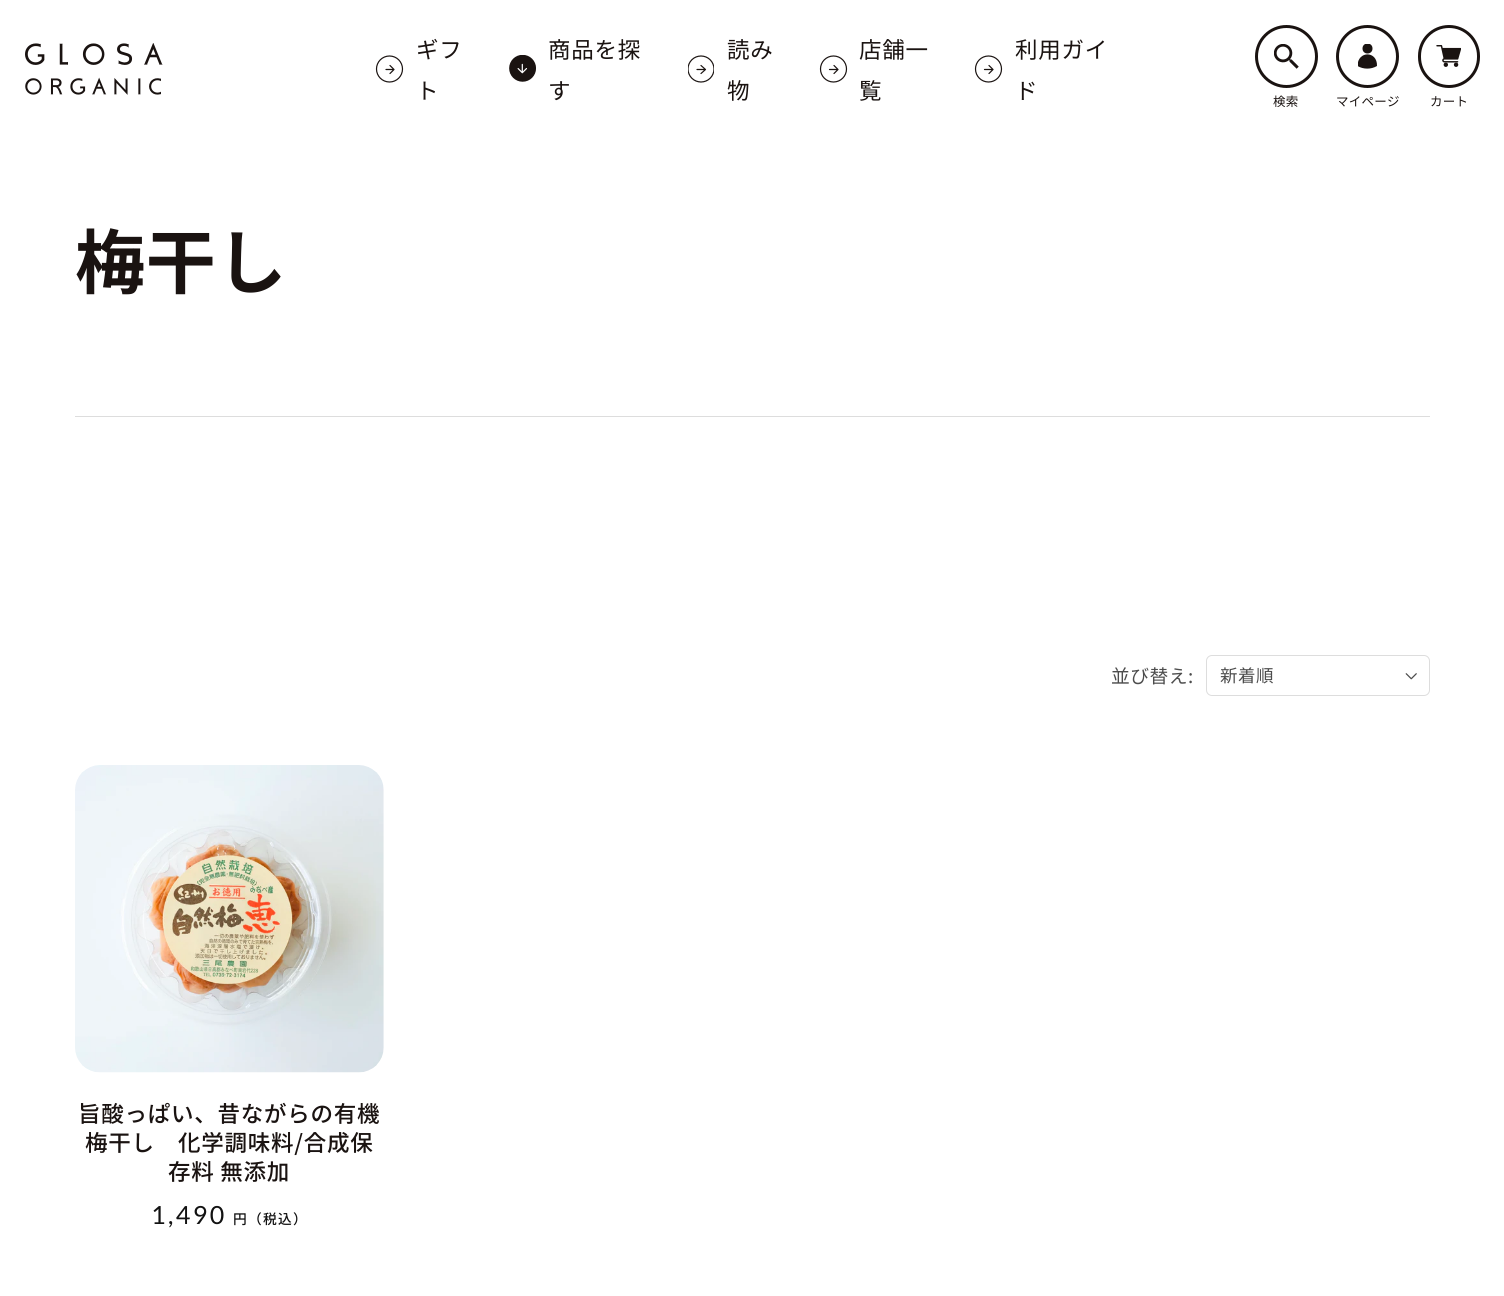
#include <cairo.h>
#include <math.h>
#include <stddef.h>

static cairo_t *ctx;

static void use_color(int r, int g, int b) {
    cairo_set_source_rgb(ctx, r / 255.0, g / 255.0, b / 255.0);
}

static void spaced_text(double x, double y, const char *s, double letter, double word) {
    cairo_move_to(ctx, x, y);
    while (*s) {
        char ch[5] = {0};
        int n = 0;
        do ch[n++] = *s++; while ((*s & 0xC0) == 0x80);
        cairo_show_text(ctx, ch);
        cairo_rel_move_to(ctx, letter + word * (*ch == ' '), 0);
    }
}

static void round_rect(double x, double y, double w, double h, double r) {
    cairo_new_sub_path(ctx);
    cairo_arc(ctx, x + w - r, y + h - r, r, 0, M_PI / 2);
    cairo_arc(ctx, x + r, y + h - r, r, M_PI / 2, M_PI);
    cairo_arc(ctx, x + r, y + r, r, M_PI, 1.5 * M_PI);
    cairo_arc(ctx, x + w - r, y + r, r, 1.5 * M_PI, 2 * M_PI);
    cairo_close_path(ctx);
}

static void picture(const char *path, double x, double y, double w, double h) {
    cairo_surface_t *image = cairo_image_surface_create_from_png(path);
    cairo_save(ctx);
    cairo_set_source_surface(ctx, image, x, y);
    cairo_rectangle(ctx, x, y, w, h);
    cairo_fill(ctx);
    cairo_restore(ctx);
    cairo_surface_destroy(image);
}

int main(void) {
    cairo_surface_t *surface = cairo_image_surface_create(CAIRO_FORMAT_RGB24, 1504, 1296);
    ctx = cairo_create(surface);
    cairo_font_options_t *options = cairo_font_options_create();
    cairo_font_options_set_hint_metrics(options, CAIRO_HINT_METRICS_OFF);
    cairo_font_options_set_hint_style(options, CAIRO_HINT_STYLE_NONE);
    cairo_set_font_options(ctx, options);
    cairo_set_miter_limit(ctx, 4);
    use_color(255, 255, 255);
    cairo_paint(ctx);
    cairo_select_font_face(ctx, "Noto Sans JP", CAIRO_FONT_SLANT_NORMAL, CAIRO_FONT_WEIGHT_NORMAL);
    cairo_set_font_size(ctx, 22.5);
    use_color(26, 19, 17);
    spaced_text(416, 58, "ギフ", 0.75, 0);
    cairo_new_path(ctx);
    cairo_arc(ctx, 389.5, 69, 13, 0, 2 * M_PI);
    cairo_set_line_width(ctx, 1.2);
    cairo_stroke(ctx);
    cairo_new_path(ctx);
    cairo_move_to(ctx, 386, 69.5);
    cairo_line_to(ctx, 393.5, 69.5);
    cairo_move_to(ctx, 390, 65.5);
    cairo_line_to(ctx, 394, 69.5);
    cairo_line_to(ctx, 390, 73.5);
    cairo_set_line_cap(ctx, CAIRO_LINE_CAP_ROUND);
    cairo_set_line_join(ctx, CAIRO_LINE_JOIN_ROUND);
    cairo_stroke(ctx);
    spaced_text(416, 99, "ト", 0.75, 0);
    spaced_text(548, 58, "商品を探", 0.75, 0);
    picture("img1.png", 509, 55, 27, 27);
    spaced_text(548, 99, "す", 0.75, 0);
    spaced_text(727, 58, "読み", 0.75, 0);
    cairo_save(ctx);
    cairo_rectangle(ctx, 688, 55, 26, 28);
    cairo_clip(ctx);
    cairo_arc(ctx, 701, 69, 13, 0, 2 * M_PI);
    cairo_set_line_cap(ctx, CAIRO_LINE_CAP_BUTT);
    cairo_set_line_join(ctx, CAIRO_LINE_JOIN_MITER);
    cairo_stroke(ctx);
    cairo_restore(ctx);
    cairo_new_path(ctx);
    cairo_move_to(ctx, 697, 69.5);
    cairo_line_to(ctx, 705, 69.5);
    cairo_move_to(ctx, 701, 65.5);
    cairo_line_to(ctx, 705.5, 69.5);
    cairo_line_to(ctx, 701, 73.5);
    cairo_stroke(ctx);
    spaced_text(727, 99, "物", 0.75, 0);
    spaced_text(859, 58, "店舗一", 0.75, 0);
    cairo_new_path(ctx);
    cairo_arc(ctx, 833.5, 69, 13, 0, 2 * M_PI);
    cairo_set_line_cap(ctx, CAIRO_LINE_CAP_BUTT);
    cairo_set_line_join(ctx, CAIRO_LINE_JOIN_MITER);
    cairo_stroke(ctx);
    cairo_new_path(ctx);
    cairo_move_to(ctx, 829.5, 69.5);
    cairo_line_to(ctx, 837.5, 69.5);
    cairo_move_to(ctx, 834, 65.5);
    cairo_line_to(ctx, 838, 69.5);
    cairo_line_to(ctx, 834, 73.5);
    cairo_set_line_cap(ctx, CAIRO_LINE_CAP_ROUND);
    cairo_set_line_join(ctx, CAIRO_LINE_JOIN_ROUND);
    cairo_stroke(ctx);
    spaced_text(859, 99, "覧", 0.75, 0);
    spaced_text(1015, 58, "利用ガイ", 0.75, 0);
    cairo_new_path(ctx);
    cairo_arc(ctx, 988.5, 69, 13, 0, 2 * M_PI);
    cairo_set_line_cap(ctx, CAIRO_LINE_CAP_BUTT);
    cairo_set_line_join(ctx, CAIRO_LINE_JOIN_MITER);
    cairo_stroke(ctx);
    cairo_new_path(ctx);
    cairo_move_to(ctx, 984.5, 69.5);
    cairo_line_to(ctx, 992.5, 69.5);
    cairo_move_to(ctx, 989, 65.5);
    cairo_line_to(ctx, 993, 69.5);
    cairo_line_to(ctx, 989, 73.5);
    cairo_set_line_cap(ctx, CAIRO_LINE_CAP_ROUND);
    cairo_set_line_join(ctx, CAIRO_LINE_JOIN_ROUND);
    cairo_stroke(ctx);
    spaced_text(1015, 99, "ド", 0.75, 0);
    picture("img2.png", 25, 43, 138, 52);
    cairo_arc(ctx, 1286.5, 56.5, 30, 0, 2 * M_PI);
    cairo_set_line_width(ctx, 3);
    cairo_set_line_cap(ctx, CAIRO_LINE_CAP_BUTT);
    cairo_set_line_join(ctx, CAIRO_LINE_JOIN_MITER);
    cairo_stroke(ctx);
    picture("img3.png", 1274, 44, 25, 25);
    cairo_set_font_size(ctx, 12.5);
    spaced_text(1273, 106, "検索", 0.25, 0);
    cairo_new_path(ctx);
    cairo_arc(ctx, 1367.5, 56.5, 30, 0, 2 * M_PI);
    cairo_stroke(ctx);
    cairo_save(ctx);
    cairo_rectangle(ctx, 1358, 44, 20, 25);
    cairo_clip(ctx);
    cairo_new_path(ctx);
    cairo_move_to(ctx, 1377, 66);
    cairo_curve_to(ctx, 1377.5, 50.5, 1357.5, 50.5, 1357.5, 66);
    cairo_curve_to(ctx, 1363.5, 69.5, 1371, 69.5, 1377, 66);
    cairo_close_path(ctx);
    cairo_fill(ctx);
    cairo_arc(ctx, 1367.5, 48.5, 5, 0, 2 * M_PI);
    cairo_fill(ctx);
    cairo_restore(ctx);
    spaced_text(1336, 106, "マイページ", 0.25, 0);
    round_rect(1419.5, 26.5, 59, 60, 29.5);
    cairo_stroke(ctx);
    picture("img4.png", 1436, 45, 25, 22);
    spaced_text(1430, 106, "カート", 0.25, 0);
    use_color(221, 221, 221);
    cairo_rectangle(ctx, 75, 416, 1355, 1);
    cairo_fill(ctx);
    cairo_select_font_face(ctx, "Noto Sans JP", CAIRO_FONT_SLANT_NORMAL, CAIRO_FONT_WEIGHT_BOLD);
    cairo_set_font_size(ctx, 70);
    use_color(26, 19, 17);
    spaced_text(75, 288, "梅干し", 0.75, 0);
    cairo_select_font_face(ctx, "Noto Sans JP", CAIRO_FONT_SLANT_NORMAL, CAIRO_FONT_WEIGHT_NORMAL);
    cairo_set_font_size(ctx, 18.75);
    use_color(77, 77, 77);
    spaced_text(1111, 683, "並び替え:", 0.5, 0);
    round_rect(1206.5, 655.5, 223, 40, 5.5);
    use_color(221, 221, 221);
    cairo_set_line_width(ctx, 1);
    cairo_stroke(ctx);
    cairo_set_font_size(ctx, 17.5);
    use_color(77, 77, 77);
    spaced_text(1220, 682, "新着順", 0.5, 0);
    picture("img5.png", 1405, 673, 12, 7);
    picture("img6.png", 75, 765, 309, 308);
    cairo_select_font_face(ctx, "Noto Sans JP Medium", CAIRO_FONT_SLANT_NORMAL, CAIRO_FONT_WEIGHT_NORMAL);
    cairo_set_font_size(ctx, 22.5);
    use_color(26, 19, 17);
    spaced_text(78, 1122, "旨酸っぱい、昔ながらの有機", 0.75, 0);
    spaced_text(85, 1151, "梅干し　化学調味料/合成保", 0.75, 0);
    spaced_text(168, 1180, "存料 無添加", 0.75, 0);
    cairo_select_font_face(ctx, "Lato", CAIRO_FONT_SLANT_NORMAL, CAIRO_FONT_WEIGHT_NORMAL);
    cairo_set_font_size(ctx, 25);
    use_color(18, 18, 18);
    spaced_text(151, 1224, "1,490", 2.5, 0);
    cairo_select_font_face(ctx, "Noto Sans JP Medium", CAIRO_FONT_SLANT_NORMAL, CAIRO_FONT_WEIGHT_NORMAL);
    cairo_set_font_size(ctx, 13.75);
    spaced_text(233, 1224, "円（税込）", 1.25, 0);
    cairo_surface_write_to_png(surface, "result.png");
    cairo_font_options_destroy(options);
    cairo_destroy(ctx);
    cairo_surface_destroy(surface);
    return 0;
}
